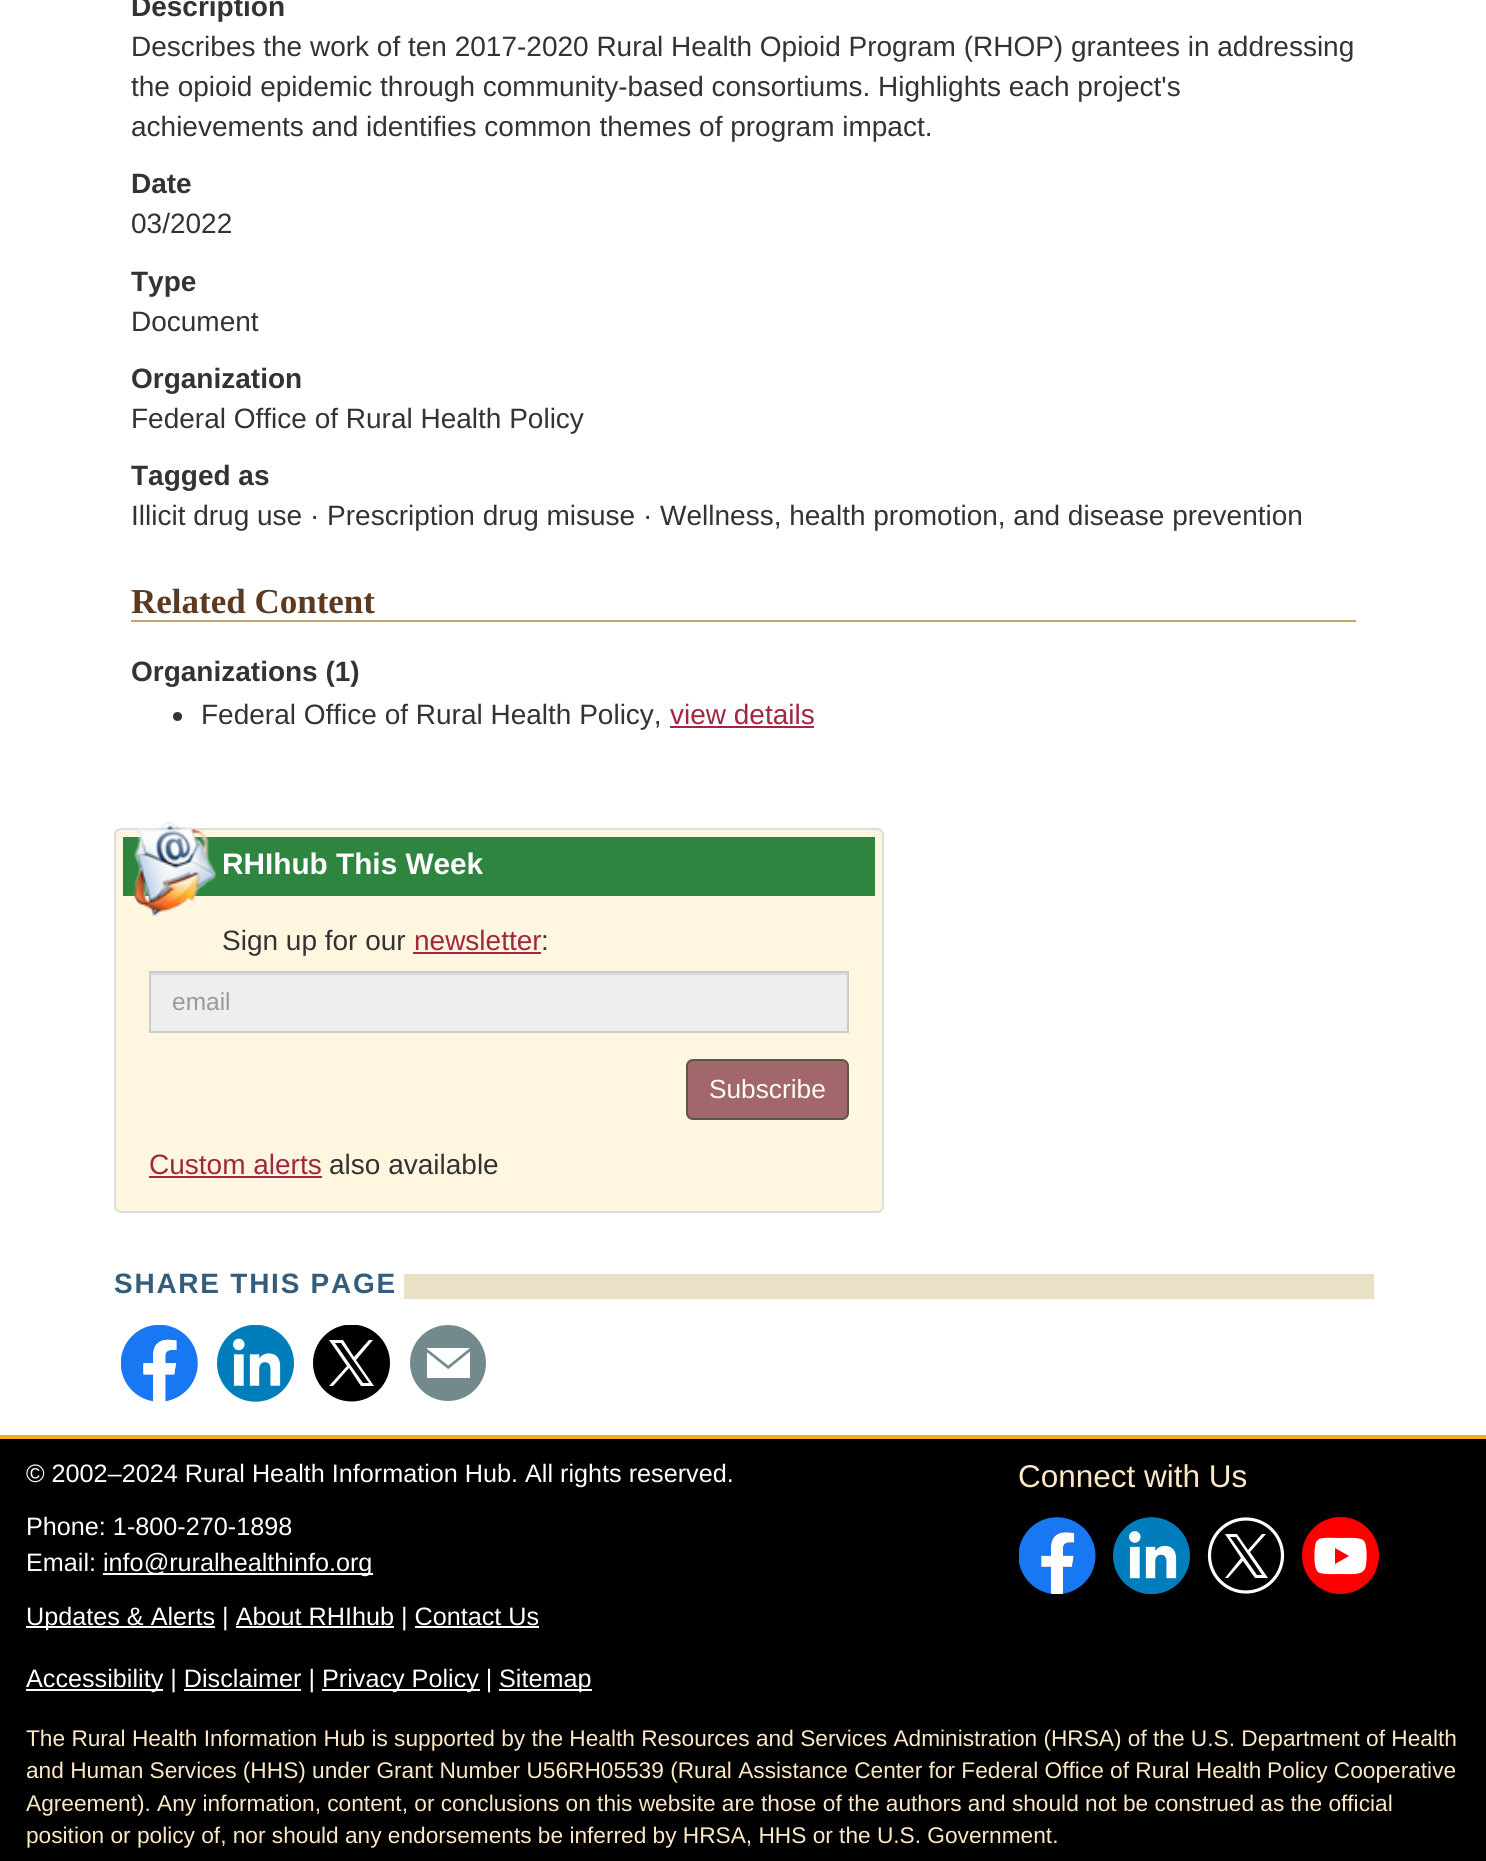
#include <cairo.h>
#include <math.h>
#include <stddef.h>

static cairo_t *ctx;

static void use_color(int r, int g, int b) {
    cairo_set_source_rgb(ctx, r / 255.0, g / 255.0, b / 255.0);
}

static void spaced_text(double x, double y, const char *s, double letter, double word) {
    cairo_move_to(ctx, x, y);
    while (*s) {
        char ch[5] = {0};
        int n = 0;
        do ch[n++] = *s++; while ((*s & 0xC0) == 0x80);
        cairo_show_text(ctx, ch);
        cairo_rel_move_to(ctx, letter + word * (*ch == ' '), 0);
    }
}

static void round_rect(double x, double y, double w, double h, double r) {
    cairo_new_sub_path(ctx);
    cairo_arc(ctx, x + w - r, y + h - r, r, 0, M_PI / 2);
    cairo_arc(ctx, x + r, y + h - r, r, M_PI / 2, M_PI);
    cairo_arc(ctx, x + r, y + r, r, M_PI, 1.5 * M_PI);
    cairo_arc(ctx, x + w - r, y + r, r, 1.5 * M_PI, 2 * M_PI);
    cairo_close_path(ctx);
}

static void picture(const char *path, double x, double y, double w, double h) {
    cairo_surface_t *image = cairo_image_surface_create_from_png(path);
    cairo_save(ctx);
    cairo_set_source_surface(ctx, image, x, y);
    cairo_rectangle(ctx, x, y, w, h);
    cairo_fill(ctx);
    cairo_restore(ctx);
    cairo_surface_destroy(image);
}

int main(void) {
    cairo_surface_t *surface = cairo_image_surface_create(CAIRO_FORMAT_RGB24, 1486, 1861);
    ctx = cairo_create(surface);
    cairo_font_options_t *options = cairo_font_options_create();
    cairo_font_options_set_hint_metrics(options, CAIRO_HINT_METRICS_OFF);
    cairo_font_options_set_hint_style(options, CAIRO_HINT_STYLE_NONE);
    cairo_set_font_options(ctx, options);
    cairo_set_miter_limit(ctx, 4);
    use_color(255, 255, 255);
    cairo_paint(ctx);
    cairo_select_font_face(ctx, "Liberation Sans", CAIRO_FONT_SLANT_NORMAL, CAIRO_FONT_WEIGHT_BOLD);
    cairo_set_font_size(ctx, 28);
    use_color(51, 51, 51);
    cairo_move_to(ctx, 131, 16);
    cairo_show_text(ctx, "Description");
    cairo_select_font_face(ctx, "Liberation Sans", CAIRO_FONT_SLANT_NORMAL, CAIRO_FONT_WEIGHT_NORMAL);
    cairo_move_to(ctx, 131, 56);
    cairo_show_text(ctx, "Describes the work of ten 2017-2020 Rural Health Opioid Program (RHOP) grantees in addressing");
    cairo_move_to(ctx, 131, 96);
    cairo_show_text(ctx, "the opioid epidemic through community-based consortiums. Highlights each project's");
    cairo_move_to(ctx, 131, 136);
    cairo_show_text(ctx, "achievements and identifies common themes of program impact.");
    cairo_select_font_face(ctx, "Liberation Sans", CAIRO_FONT_SLANT_NORMAL, CAIRO_FONT_WEIGHT_BOLD);
    cairo_move_to(ctx, 131, 193);
    cairo_show_text(ctx, "Date");
    cairo_select_font_face(ctx, "Liberation Sans", CAIRO_FONT_SLANT_NORMAL, CAIRO_FONT_WEIGHT_NORMAL);
    cairo_move_to(ctx, 131, 233);
    cairo_show_text(ctx, "03/2022");
    cairo_select_font_face(ctx, "Liberation Sans", CAIRO_FONT_SLANT_NORMAL, CAIRO_FONT_WEIGHT_BOLD);
    cairo_move_to(ctx, 131, 291);
    cairo_show_text(ctx, "Type");
    cairo_select_font_face(ctx, "Liberation Sans", CAIRO_FONT_SLANT_NORMAL, CAIRO_FONT_WEIGHT_NORMAL);
    cairo_move_to(ctx, 131, 331);
    cairo_show_text(ctx, "Document");
    cairo_select_font_face(ctx, "Liberation Sans", CAIRO_FONT_SLANT_NORMAL, CAIRO_FONT_WEIGHT_BOLD);
    cairo_move_to(ctx, 131, 388);
    cairo_show_text(ctx, "Organization");
    cairo_select_font_face(ctx, "Liberation Sans", CAIRO_FONT_SLANT_NORMAL, CAIRO_FONT_WEIGHT_NORMAL);
    cairo_move_to(ctx, 131, 428);
    cairo_show_text(ctx, "Federal Office of Rural Health Policy");
    cairo_select_font_face(ctx, "Liberation Sans", CAIRO_FONT_SLANT_NORMAL, CAIRO_FONT_WEIGHT_BOLD);
    cairo_move_to(ctx, 131, 485);
    cairo_show_text(ctx, "Tagged as");
    cairo_select_font_face(ctx, "Liberation Sans", CAIRO_FONT_SLANT_NORMAL, CAIRO_FONT_WEIGHT_NORMAL);
    cairo_move_to(ctx, 131, 525);
    cairo_show_text(ctx, "Illicit drug use · Prescription drug misuse · Wellness, health promotion, and disease prevention");
    use_color(191, 168, 98);
    cairo_rectangle(ctx, 131, 620, 1225, 2);
    cairo_fill(ctx);
    cairo_select_font_face(ctx, "Liberation Serif", CAIRO_FONT_SLANT_NORMAL, CAIRO_FONT_WEIGHT_BOLD);
    cairo_set_font_size(ctx, 35);
    use_color(92, 58, 31);
    cairo_move_to(ctx, 131, 613);
    cairo_show_text(ctx, "Related Content");
    cairo_select_font_face(ctx, "Liberation Sans", CAIRO_FONT_SLANT_NORMAL, CAIRO_FONT_WEIGHT_BOLD);
    cairo_set_font_size(ctx, 28);
    use_color(51, 51, 51);
    cairo_move_to(ctx, 131, 681);
    cairo_show_text(ctx, "Organizations (1)");
    cairo_new_path(ctx);
    cairo_arc(ctx, 177.5, 716.5, 4.5, 0, 2 * M_PI);
    cairo_fill(ctx);
    cairo_select_font_face(ctx, "Liberation Sans", CAIRO_FONT_SLANT_NORMAL, CAIRO_FONT_WEIGHT_NORMAL);
    cairo_move_to(ctx, 201, 724);
    cairo_show_text(ctx, "Federal Office of Rural Health Policy,");
    use_color(161, 38, 65);
    cairo_move_to(ctx, 670, 724);
    cairo_show_text(ctx, "view details");
    cairo_rectangle(ctx, 670, 726, 144, 2);
    cairo_fill(ctx);
    use_color(254, 246, 223);
    round_rect(115, 829, 768, 383, 6);
    cairo_fill_preserve(ctx);
    use_color(221, 221, 221);
    cairo_stroke(ctx);
    use_color(46, 133, 64);
    cairo_rectangle(ctx, 123, 837, 752, 59);
    cairo_fill(ctx);
    picture("img1.png", 133, 821, 83, 95);
    cairo_select_font_face(ctx, "Liberation Sans", CAIRO_FONT_SLANT_NORMAL, CAIRO_FONT_WEIGHT_BOLD);
    cairo_set_font_size(ctx, 29.75);
    use_color(255, 255, 255);
    cairo_move_to(ctx, 222, 874);
    cairo_show_text(ctx, "RHIhub This Week");
    cairo_select_font_face(ctx, "Liberation Sans", CAIRO_FONT_SLANT_NORMAL, CAIRO_FONT_WEIGHT_NORMAL);
    cairo_set_font_size(ctx, 28);
    use_color(51, 51, 51);
    cairo_move_to(ctx, 222, 950);
    cairo_show_text(ctx, "Sign up for our");
    use_color(161, 38, 65);
    cairo_move_to(ctx, 414, 950);
    cairo_show_text(ctx, "newsletter");
    cairo_rectangle(ctx, 413, 952, 128, 2);
    cairo_fill(ctx);
    use_color(51, 51, 51);
    cairo_move_to(ctx, 541, 950);
    cairo_show_text(ctx, ":");
    use_color(238, 238, 238);
    cairo_rectangle(ctx, 151, 975, 696, 56);
    cairo_fill(ctx);
    use_color(220, 220, 220);
    cairo_rectangle(ctx, 151, 973, 696, 2);
    cairo_fill(ctx);
    cairo_rectangle(ctx, 150, 972, 698, 60);
    use_color(204, 204, 204);
    cairo_stroke(ctx);
    cairo_set_font_size(ctx, 24.5);
    use_color(153, 153, 153);
    cairo_move_to(ctx, 172, 1010);
    cairo_show_text(ctx, "email");
    use_color(161, 103, 107);
    round_rect(687, 1060, 161, 59, 6);
    cairo_fill_preserve(ctx);
    use_color(89, 86, 78);
    cairo_stroke(ctx);
    cairo_set_font_size(ctx, 26.25);
    use_color(255, 252, 244);
    cairo_move_to(ctx, 709, 1098);
    cairo_show_text(ctx, "Subscribe");
    cairo_set_font_size(ctx, 28);
    use_color(161, 38, 65);
    cairo_move_to(ctx, 149, 1174);
    cairo_show_text(ctx, "Custom alerts");
    cairo_rectangle(ctx, 149, 1176, 173, 2);
    cairo_fill(ctx);
    use_color(51, 51, 51);
    cairo_move_to(ctx, 329, 1174);
    cairo_show_text(ctx, "also available");
    cairo_select_font_face(ctx, "Liberation Sans", CAIRO_FONT_SLANT_NORMAL, CAIRO_FONT_WEIGHT_BOLD);
    use_color(51, 93, 122);
    spaced_text(114, 1293, "SHARE THIS PAGE", 1.75, 0);
    use_color(233, 225, 197);
    cairo_rectangle(ctx, 404, 1274, 970, 25);
    cairo_fill(ctx);
    picture("img2.png", 121, 1325, 77, 77);
    picture("img3.png", 217, 1325, 77, 77);
    cairo_save(ctx);
    cairo_rectangle(ctx, 313, 1325, 77, 77);
    cairo_clip(ctx);
    use_color(0, 0, 0);
    cairo_arc(ctx, 351.5, 1363, 38.5, 0, 2 * M_PI);
    cairo_fill(ctx);
    cairo_restore(ctx);
    use_color(255, 255, 255);
    cairo_new_path(ctx);
    cairo_move_to(ctx, 356, 1360);
    cairo_line_to(ctx, 373, 1340);
    cairo_line_to(ctx, 369, 1340);
    cairo_line_to(ctx, 354, 1357);
    cairo_line_to(ctx, 343, 1340);
    cairo_line_to(ctx, 329, 1340);
    cairo_line_to(ctx, 347, 1366);
    cairo_line_to(ctx, 329, 1386);
    cairo_line_to(ctx, 333, 1386);
    cairo_line_to(ctx, 349, 1368);
    cairo_line_to(ctx, 361, 1386);
    cairo_line_to(ctx, 374, 1386);
    cairo_close_path(ctx);
    cairo_move_to(ctx, 351, 1366);
    cairo_line_to(ctx, 335, 1343);
    cairo_line_to(ctx, 341, 1343);
    cairo_line_to(ctx, 369, 1383);
    cairo_line_to(ctx, 363, 1383);
    cairo_close_path(ctx);
    cairo_fill(ctx);
    use_color(115, 138, 141);
    cairo_arc(ctx, 448, 1363, 38, 0, 2 * M_PI);
    cairo_fill(ctx);
    use_color(255, 255, 255);
    cairo_rectangle(ctx, 427, 1348, 43, 30);
    cairo_fill(ctx);
    cairo_new_path(ctx);
    cairo_move_to(ctx, 424.5, 1348.5);
    cairo_line_to(ctx, 449, 1368);
    cairo_move_to(ctx, 471.5, 1348.5);
    cairo_line_to(ctx, 447.5, 1368);
    use_color(115, 138, 141);
    cairo_set_line_width(ctx, 2.7);
    cairo_stroke(ctx);
    use_color(0, 0, 0);
    cairo_rectangle(ctx, 0, 1439, 1486, 422);
    cairo_fill(ctx);
    use_color(247, 168, 27);
    cairo_rectangle(ctx, 0, 1435, 1486, 4);
    cairo_fill(ctx);
    cairo_select_font_face(ctx, "Liberation Sans", CAIRO_FONT_SLANT_NORMAL, CAIRO_FONT_WEIGHT_NORMAL);
    cairo_set_font_size(ctx, 25.2);
    use_color(255, 255, 255);
    cairo_move_to(ctx, 26, 1482);
    cairo_show_text(ctx, "© 2002–2024 Rural Health Information Hub. All rights reserved.");
    cairo_move_to(ctx, 26, 1535);
    cairo_show_text(ctx, "Phone: 1-800-270-1898");
    cairo_move_to(ctx, 26, 1571);
    cairo_show_text(ctx, "Email:");
    cairo_rectangle(ctx, 103, 1573, 270, 2);
    cairo_fill(ctx);
    cairo_move_to(ctx, 103, 1571);
    cairo_show_text(ctx, "info@ruralhealthinfo.org");
    cairo_rectangle(ctx, 26, 1626, 189, 2);
    cairo_fill(ctx);
    cairo_move_to(ctx, 26, 1625);
    cairo_show_text(ctx, "Updates & Alerts | About RHIhub | Contact Us");
    cairo_rectangle(ctx, 236, 1626, 158, 2);
    cairo_fill(ctx);
    cairo_rectangle(ctx, 415, 1626, 124, 2);
    cairo_fill(ctx);
    cairo_rectangle(ctx, 26, 1689, 137, 2);
    cairo_fill(ctx);
    cairo_move_to(ctx, 26, 1687);
    cairo_show_text(ctx, "Accessibility | Disclaimer |");
    cairo_rectangle(ctx, 322, 1689, 158, 2);
    cairo_fill(ctx);
    cairo_move_to(ctx, 322, 1687);
    cairo_show_text(ctx, "Privacy Policy |");
    cairo_rectangle(ctx, 499, 1689, 93, 2);
    cairo_fill(ctx);
    cairo_move_to(ctx, 499, 1687);
    cairo_show_text(ctx, "Sitemap");
    cairo_rectangle(ctx, 184, 1689, 117, 2);
    cairo_fill(ctx);
    cairo_set_font_size(ctx, 31.5);
    use_color(253, 232, 198);
    cairo_move_to(ctx, 1018, 1487);
    cairo_show_text(ctx, "Connect with Us");
    picture("img4.png", 1019, 1517, 77, 77);
    picture("img5.png", 1113, 1517, 77, 77);
    cairo_arc(ctx, 1246, 1555.5, 36.5, 0, 2 * M_PI);
    use_color(255, 255, 255);
    cairo_set_line_width(ctx, 3.2);
    cairo_stroke(ctx);
    cairo_new_path(ctx);
    cairo_move_to(ctx, 1250, 1552);
    cairo_line_to(ctx, 1266, 1534);
    cairo_line_to(ctx, 1262, 1534);
    cairo_line_to(ctx, 1248, 1550);
    cairo_line_to(ctx, 1237, 1534);
    cairo_line_to(ctx, 1225, 1534);
    cairo_line_to(ctx, 1241, 1558);
    cairo_line_to(ctx, 1225, 1578);
    cairo_line_to(ctx, 1228, 1578);
    cairo_line_to(ctx, 1243, 1561);
    cairo_line_to(ctx, 1255, 1578);
    cairo_line_to(ctx, 1268, 1578);
    cairo_close_path(ctx);
    cairo_move_to(ctx, 1245, 1558);
    cairo_line_to(ctx, 1230, 1537);
    cairo_line_to(ctx, 1236, 1537);
    cairo_line_to(ctx, 1262, 1575);
    cairo_line_to(ctx, 1257, 1575);
    cairo_close_path(ctx);
    cairo_fill(ctx);
    use_color(255, 0, 0);
    cairo_arc(ctx, 1340.5, 1555.5, 38.5, 0, 2 * M_PI);
    cairo_fill(ctx);
    use_color(255, 255, 255);
    cairo_new_path(ctx);
    cairo_move_to(ctx, 1340, 1538);
    cairo_curve_to(ctx, 1335, 1538, 1323, 1537, 1319, 1539);
    cairo_line_to(ctx, 1316, 1542);
    cairo_curve_to(ctx, 1314, 1548, 1313, 1568, 1318, 1572);
    cairo_curve_to(ctx, 1322, 1575, 1335, 1574, 1340, 1574);
    cairo_curve_to(ctx, 1346, 1574, 1358, 1575, 1362, 1572);
    cairo_line_to(ctx, 1365, 1569);
    cairo_curve_to(ctx, 1367, 1564, 1368, 1543, 1363, 1540);
    cairo_curve_to(ctx, 1359, 1537, 1346, 1538, 1340, 1538);
    cairo_close_path(ctx);
    cairo_move_to(ctx, 1335, 1548);
    cairo_line_to(ctx, 1349, 1556);
    cairo_line_to(ctx, 1335, 1564);
    cairo_close_path(ctx);
    cairo_fill(ctx);
    cairo_set_font_size(ctx, 22.68);
    use_color(253, 232, 198);
    cairo_move_to(ctx, 26, 1746);
    cairo_show_text(ctx, "The Rural Health Information Hub is supported by the Health Resources");
    cairo_move_to(ctx, 756, 1746);
    cairo_show_text(ctx, "and Services Administration (HRSA) of the U.S. Department of Health");
    cairo_move_to(ctx, 26, 1778);
    cairo_show_text(ctx, "and Human Services (HHS) under Grant Number U56RH05539 (Rural Assistance Center for Federal Office of Rural Health");
    cairo_move_to(ctx, 1267, 1778);
    cairo_show_text(ctx, "Policy Cooperative");
    cairo_move_to(ctx, 26, 1811);
    cairo_show_text(ctx, "Agreement). Any information, content, or conclusions on this website are");
    cairo_move_to(ctx, 761, 1811);
    cairo_show_text(ctx, "those of the authors and should not be construed as the official");
    cairo_move_to(ctx, 26, 1843);
    cairo_show_text(ctx, "position or policy of, nor should any endorsements be inferred by HRSA, HHS or the U.S. Government.");
    cairo_surface_write_to_png(surface, "result.png");
    cairo_font_options_destroy(options);
    cairo_destroy(ctx);
    cairo_surface_destroy(surface);
    return 0;
}
